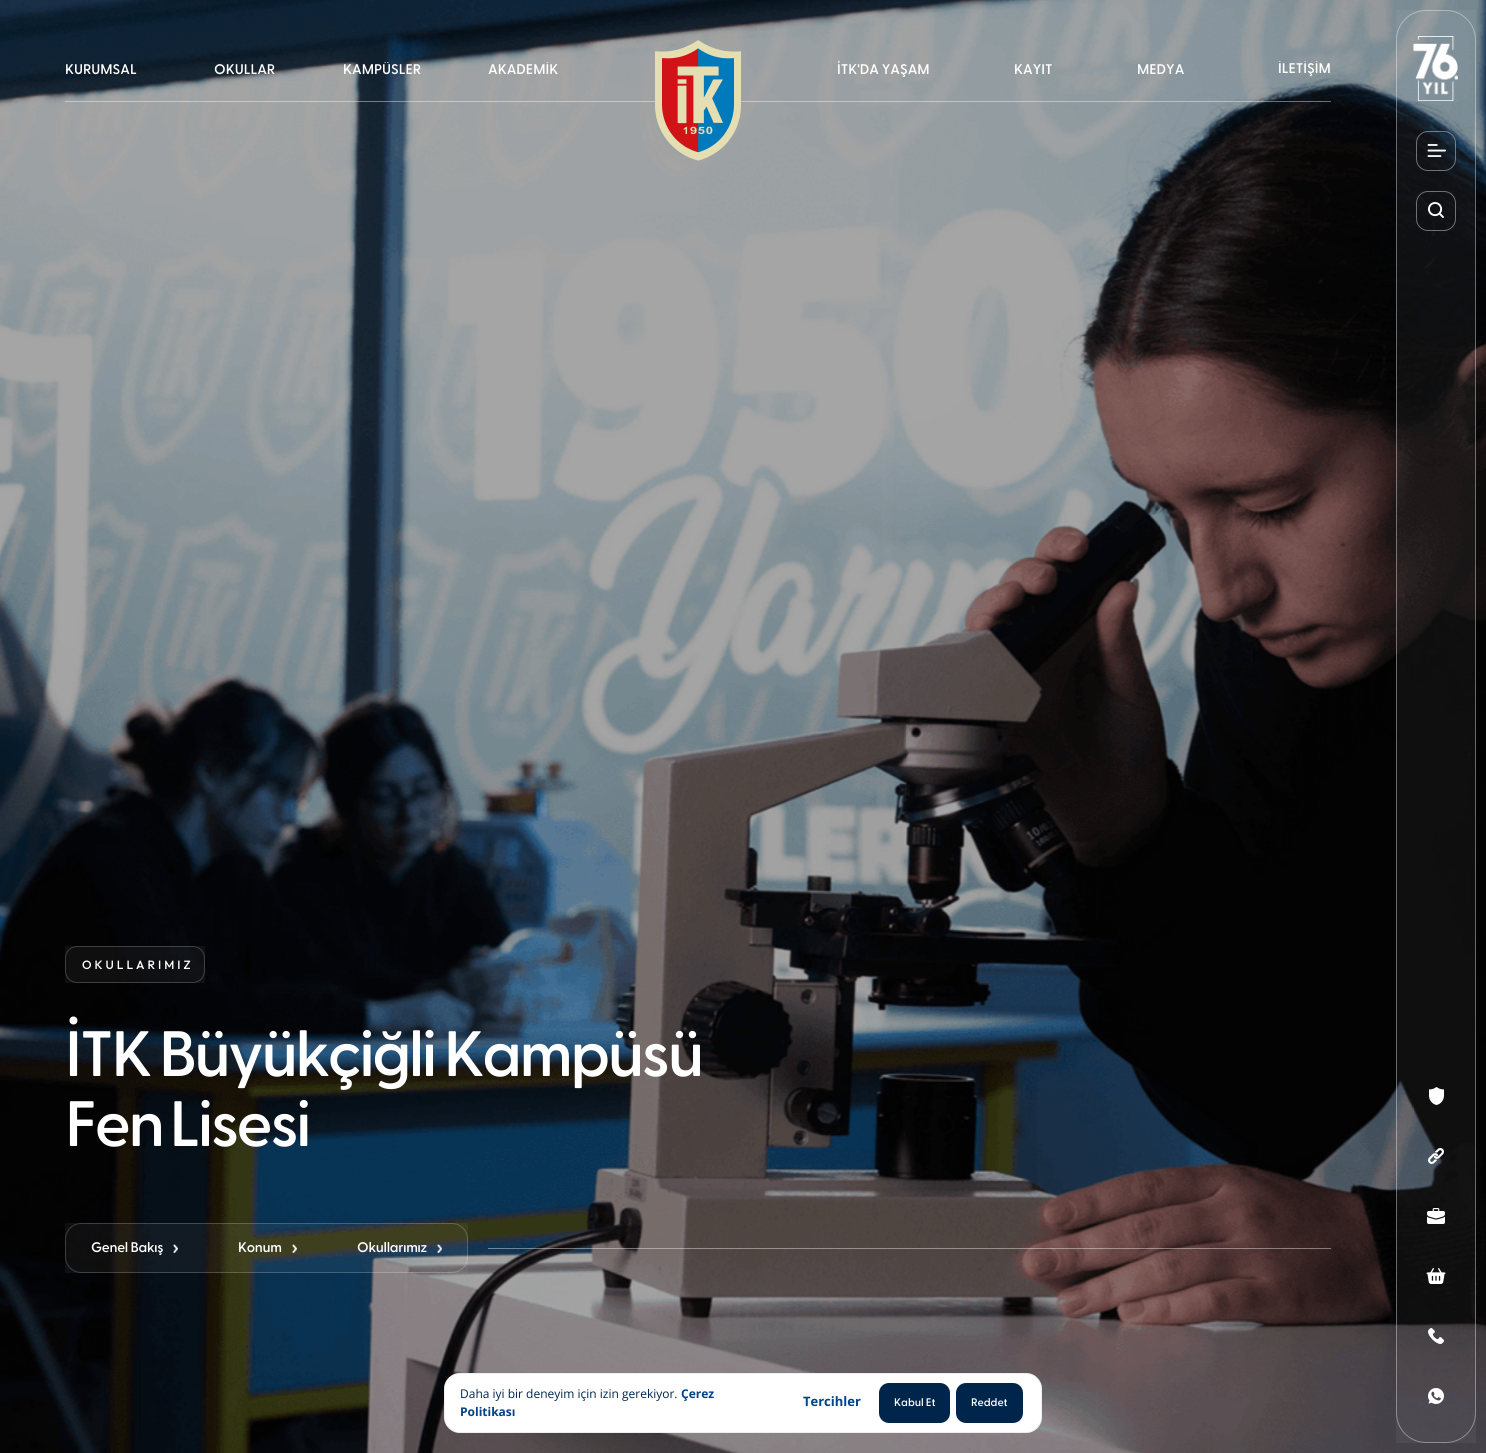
#include <cairo.h>
#include <math.h>
#include <stddef.h>

static cairo_t *ctx;

static void use_color(int r, int g, int b) {
    cairo_set_source_rgb(ctx, r / 255.0, g / 255.0, b / 255.0);
}

static void spaced_text(double x, double y, const char *s, double letter, double word) {
    cairo_move_to(ctx, x, y);
    while (*s) {
        char ch[5] = {0};
        int n = 0;
        do ch[n++] = *s++; while ((*s & 0xC0) == 0x80);
        cairo_show_text(ctx, ch);
        cairo_rel_move_to(ctx, letter + word * (*ch == ' '), 0);
    }
}

static void round_rect(double x, double y, double w, double h, double r) {
    cairo_new_sub_path(ctx);
    cairo_arc(ctx, x + w - r, y + h - r, r, 0, M_PI / 2);
    cairo_arc(ctx, x + r, y + h - r, r, M_PI / 2, M_PI);
    cairo_arc(ctx, x + r, y + r, r, M_PI, 1.5 * M_PI);
    cairo_arc(ctx, x + w - r, y + r, r, 1.5 * M_PI, 2 * M_PI);
    cairo_close_path(ctx);
}

static void picture(const char *path, double x, double y, double w, double h) {
    cairo_surface_t *image = cairo_image_surface_create_from_png(path);
    cairo_save(ctx);
    cairo_set_source_surface(ctx, image, x, y);
    cairo_rectangle(ctx, x, y, w, h);
    cairo_fill(ctx);
    cairo_restore(ctx);
    cairo_surface_destroy(image);
}

int main(void) {
    cairo_surface_t *surface = cairo_image_surface_create(CAIRO_FORMAT_RGB24, 1486, 1453);
    ctx = cairo_create(surface);
    cairo_font_options_t *options = cairo_font_options_create();
    cairo_font_options_set_hint_metrics(options, CAIRO_HINT_METRICS_OFF);
    cairo_font_options_set_hint_style(options, CAIRO_HINT_STYLE_NONE);
    cairo_set_font_options(ctx, options);
    cairo_set_miter_limit(ctx, 4);
    use_color(255, 255, 255);
    cairo_paint(ctx);
    picture("img11.png", 0, 0, 1486, 1453);
    cairo_set_source_rgba(ctx, 1, 1, 1, 0.4);
    cairo_rectangle(ctx, 65, 101, 1266, 1);
    cairo_fill(ctx);
    cairo_select_font_face(ctx, "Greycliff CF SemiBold", CAIRO_FONT_SLANT_NORMAL, CAIRO_FONT_WEIGHT_NORMAL);
    cairo_set_font_size(ctx, 14);
    use_color(255, 255, 255);
    cairo_move_to(ctx, 65, 74);
    cairo_show_text(ctx, "KURUMSAL");
    cairo_move_to(ctx, 214, 74);
    cairo_show_text(ctx, "OKULLAR");
    cairo_save(ctx);
    cairo_rectangle(ctx, 333, 62, 98, 42);
    cairo_clip(ctx);
    cairo_move_to(ctx, 343, 74);
    cairo_show_text(ctx, "KAMPÜSLER");
    cairo_restore(ctx);
    cairo_save(ctx);
    cairo_rectangle(ctx, 478, 62, 91, 42);
    cairo_clip(ctx);
    cairo_move_to(ctx, 488, 74);
    cairo_show_text(ctx, "AKADEMİK");
    cairo_restore(ctx);
    picture("img1.png", 655, 40, 86, 121);
    cairo_move_to(ctx, 837, 74);
    cairo_show_text(ctx, "İTK'DA YAŞAM");
    cairo_move_to(ctx, 1014, 74);
    cairo_show_text(ctx, "KAYIT");
    cairo_move_to(ctx, 1137, 74);
    cairo_show_text(ctx, "MEDYA");
    cairo_save(ctx);
    cairo_rectangle(ctx, 1258, 61, 73, 44);
    cairo_clip(ctx);
    cairo_move_to(ctx, 1278, 73);
    cairo_show_text(ctx, "İLETİŞİM");
    cairo_restore(ctx);
    cairo_set_source_rgba(ctx, 0.949, 0.957, 0.965, 0.05);
    cairo_rectangle(ctx, 1396, 10, 80, 1433);
    cairo_fill(ctx);
    round_rect(1396.5, 10.5, 79, 1432, 29.5);
    cairo_set_source_rgba(ctx, 0.949, 0.957, 0.965, 0.4);
    cairo_set_line_width(ctx, 1);
    cairo_stroke(ctx);
    picture("img2.png", 1413, 36, 45, 65);
    round_rect(1416.5, 131.5, 39, 39, 11.5);
    cairo_set_source_rgba(ctx, 1, 1, 1, 0.4);
    cairo_stroke(ctx);
    picture("img3.png", 1427, 144, 19, 13);
    round_rect(1416.5, 191.5, 39, 39, 11.5);
    cairo_stroke(ctx);
    picture("img4.png", 1428, 202, 16, 16);
    picture("img5.png", 1429, 1087, 15, 18);
    picture("img6.png", 1428, 1148, 16, 16);
    picture("img7.png", 1427, 1208, 18, 16);
    picture("img8.png", 1426, 1268, 20, 16);
    picture("img9.png", 1428, 1328, 16, 16);
    picture("img10.png", 1428, 1388, 16, 16);
    cairo_set_source_rgba(ctx, 1, 1, 1, 0.05);
    cairo_rectangle(ctx, 65, 946, 140, 37);
    cairo_fill(ctx);
    round_rect(65.5, 946.5, 139, 36, 11.5);
    cairo_set_source_rgba(ctx, 1, 1, 1, 0.2);
    cairo_stroke(ctx);
    cairo_select_font_face(ctx, "Outfit Medium", CAIRO_FONT_SLANT_NORMAL, CAIRO_FONT_WEIGHT_NORMAL);
    cairo_set_font_size(ctx, 12);
    use_color(255, 255, 255);
    spaced_text(82, 969, "OKULLARIMIZ", 3, 0);
    cairo_select_font_face(ctx, "Greycliff CF SemiBold", CAIRO_FONT_SLANT_NORMAL, CAIRO_FONT_WEIGHT_NORMAL);
    cairo_set_font_size(ctx, 64);
    spaced_text(65, 1076, "İTK Büyükçiğli Kampüsü", -2.6, -1);
    spaced_text(65, 1146, "Fen Lisesi", -2.6, -3);
    cairo_set_source_rgba(ctx, 1, 1, 1, 0.05);
    cairo_rectangle(ctx, 65, 1223, 403, 50);
    cairo_fill(ctx);
    round_rect(65.5, 1223.5, 402, 49, 15.5);
    cairo_set_source_rgba(ctx, 1, 1, 1, 0.2);
    cairo_stroke(ctx);
    cairo_set_font_size(ctx, 14);
    use_color(255, 255, 255);
    spaced_text(91, 1252, "Genel Bakış", -0.25, 0);
    picture("img12.png", 173, 1244, 5, 9);
    spaced_text(238, 1252, "Konum", -0.25, 0);
    picture("img13.png", 292, 1244, 5, 9);
    spaced_text(357, 1252, "Okullarımız", -0.25, 0);
    picture("img14.png", 437, 1244, 5, 9);
    cairo_set_source_rgba(ctx, 1, 1, 1, 0.4);
    cairo_rectangle(ctx, 488, 1248, 843, 1);
    cairo_fill(ctx);
    use_color(255, 255, 255);
    round_rect(444, 1373, 598, 60, 16);
    cairo_fill(ctx);
    round_rect(444.5, 1373.5, 597, 59, 15.5);
    cairo_set_source_rgba(ctx, 0.627, 0.675, 0.725, 0.2);
    cairo_stroke(ctx);
    cairo_select_font_face(ctx, "Open Sans", CAIRO_FONT_SLANT_NORMAL, CAIRO_FONT_WEIGHT_NORMAL);
    cairo_set_font_size(ctx, 12);
    use_color(0, 37, 75);
    cairo_move_to(ctx, 460, 1398);
    cairo_show_text(ctx, "Daha iyi bir deneyim için izin gerekiyor.");
    cairo_select_font_face(ctx, "Open Sans", CAIRO_FONT_SLANT_NORMAL, CAIRO_FONT_WEIGHT_BOLD);
    use_color(0, 67, 136);
    cairo_move_to(ctx, 681, 1398);
    cairo_show_text(ctx, "Çerez");
    cairo_move_to(ctx, 460, 1416);
    cairo_show_text(ctx, "Politikası");
    cairo_set_font_size(ctx, 13);
    cairo_move_to(ctx, 803, 1406);
    cairo_show_text(ctx, "Tercihler");
    use_color(0, 37, 75);
    round_rect(879, 1383, 71, 40, 10);
    cairo_fill(ctx);
    cairo_select_font_face(ctx, "Greycliff CF SemiBold", CAIRO_FONT_SLANT_NORMAL, CAIRO_FONT_WEIGHT_NORMAL);
    cairo_set_font_size(ctx, 11);
    use_color(255, 255, 255);
    cairo_move_to(ctx, 894, 1406);
    cairo_show_text(ctx, "Kabul Et");
    use_color(0, 37, 75);
    round_rect(956, 1383, 67, 40, 10);
    cairo_fill(ctx);
    use_color(255, 255, 255);
    cairo_move_to(ctx, 971, 1406);
    cairo_show_text(ctx, "Reddet");
    cairo_surface_write_to_png(surface, "result.png");
    cairo_font_options_destroy(options);
    cairo_destroy(ctx);
    cairo_surface_destroy(surface);
    return 0;
}
